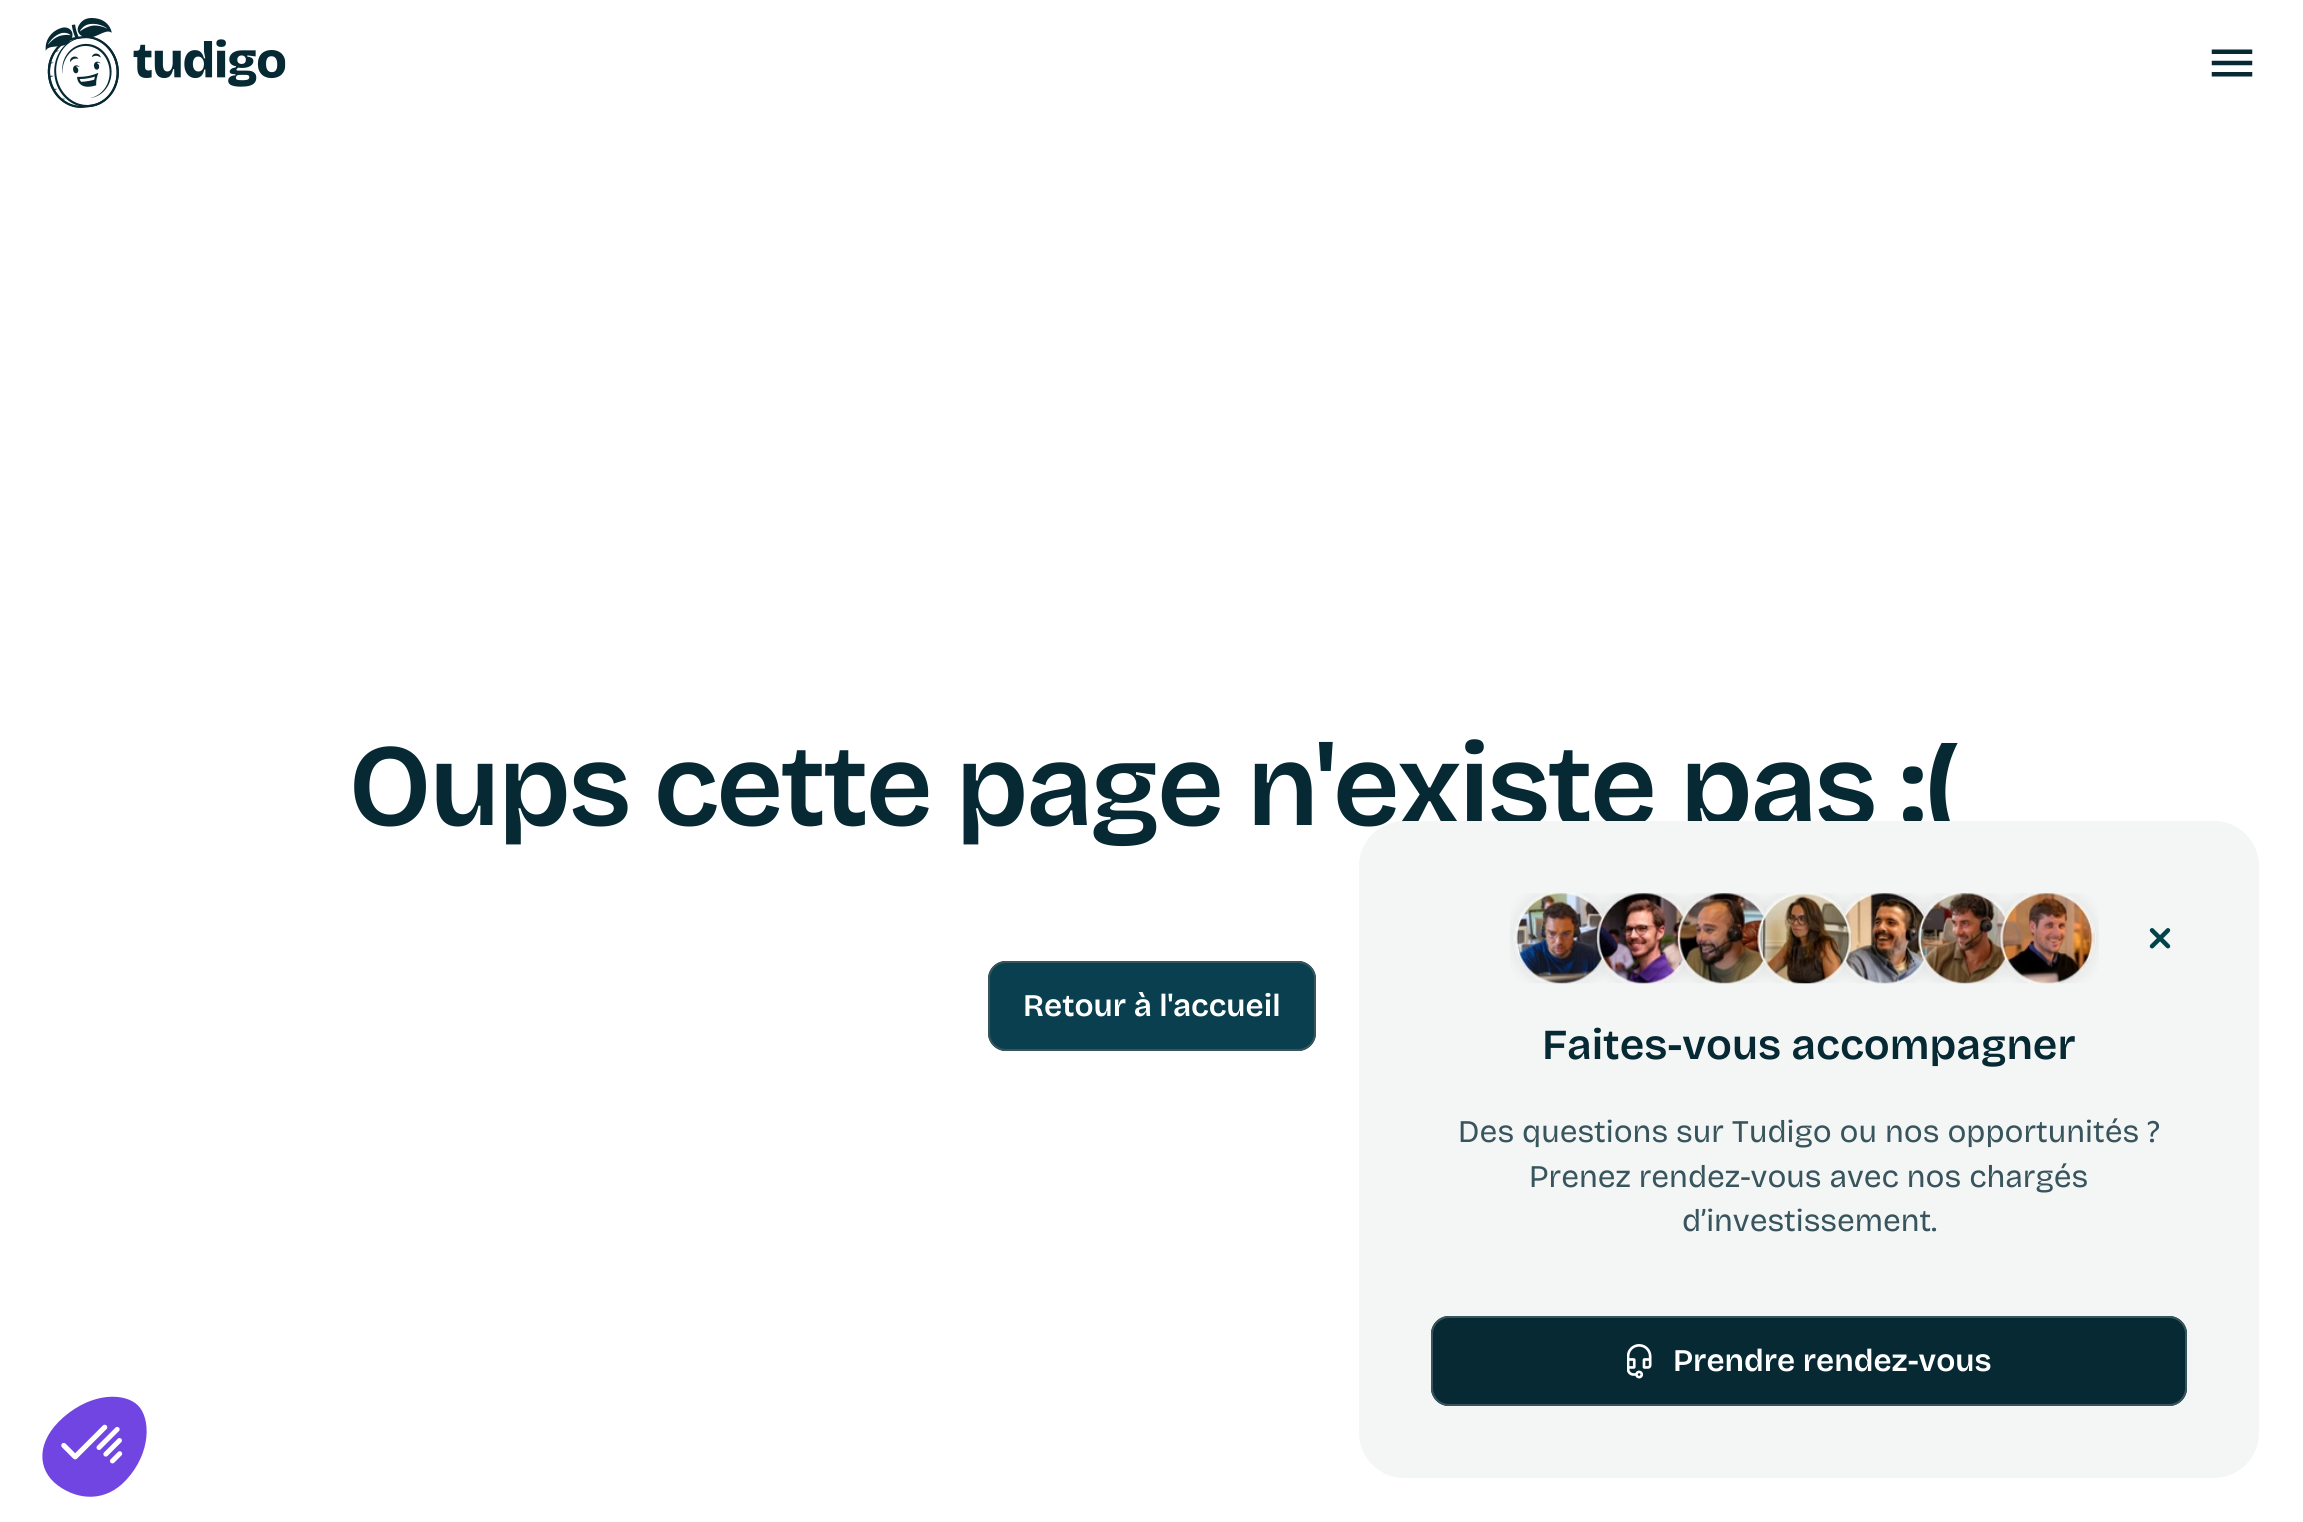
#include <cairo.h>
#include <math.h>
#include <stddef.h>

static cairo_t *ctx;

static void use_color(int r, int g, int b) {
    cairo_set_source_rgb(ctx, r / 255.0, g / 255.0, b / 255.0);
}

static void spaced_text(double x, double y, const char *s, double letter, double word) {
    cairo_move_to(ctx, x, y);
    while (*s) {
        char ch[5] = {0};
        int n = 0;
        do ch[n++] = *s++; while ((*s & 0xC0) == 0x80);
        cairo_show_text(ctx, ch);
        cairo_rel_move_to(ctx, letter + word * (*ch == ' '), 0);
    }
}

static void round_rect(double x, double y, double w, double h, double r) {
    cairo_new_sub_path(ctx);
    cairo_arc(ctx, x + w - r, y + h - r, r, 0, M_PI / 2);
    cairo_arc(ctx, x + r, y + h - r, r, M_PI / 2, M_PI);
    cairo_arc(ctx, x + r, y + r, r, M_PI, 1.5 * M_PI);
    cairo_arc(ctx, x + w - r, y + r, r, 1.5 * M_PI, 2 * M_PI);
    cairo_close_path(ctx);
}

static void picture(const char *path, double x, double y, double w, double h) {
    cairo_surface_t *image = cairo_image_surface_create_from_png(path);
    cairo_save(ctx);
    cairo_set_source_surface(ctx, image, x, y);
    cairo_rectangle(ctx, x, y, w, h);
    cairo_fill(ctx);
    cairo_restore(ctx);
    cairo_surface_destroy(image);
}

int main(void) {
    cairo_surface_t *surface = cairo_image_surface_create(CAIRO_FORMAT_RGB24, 2303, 1522);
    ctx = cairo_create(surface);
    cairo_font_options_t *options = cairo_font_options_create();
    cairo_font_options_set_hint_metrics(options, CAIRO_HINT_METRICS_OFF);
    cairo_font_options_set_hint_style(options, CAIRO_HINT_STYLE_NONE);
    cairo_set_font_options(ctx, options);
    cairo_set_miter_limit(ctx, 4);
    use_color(255, 255, 255);
    cairo_paint(ctx);
    picture("img1.png", 45, 18, 241, 90);
    picture("img2.png", 2211, 49, 42, 28);
    cairo_select_font_face(ctx, "Bricolage Grotesque SemiBold", CAIRO_FONT_SLANT_NORMAL, CAIRO_FONT_WEIGHT_NORMAL);
    cairo_set_font_size(ctx, 117);
    use_color(6, 41, 52);
    spaced_text(348, 825, "Oups cette page n'existe pas :(", -2.9, 0);
    use_color(9, 63, 79);
    round_rect(988, 961, 328, 90, 18);
    cairo_fill(ctx);
    round_rect(989, 962, 326, 88, 17);
    use_color(56, 84, 93);
    cairo_stroke(ctx);
    cairo_set_font_size(ctx, 31.5);
    use_color(255, 255, 255);
    cairo_move_to(ctx, 1023, 1016);
    cairo_show_text(ctx, "Retour à l'accueil");
    use_color(244, 246, 246);
    round_rect(1359, 821, 900, 657, 45);
    cairo_fill(ctx);
    picture("img3.png", 1510, 893, 589, 91);
    picture("img4.png", 2149, 928, 22, 21);
    cairo_set_font_size(ctx, 42.75);
    use_color(6, 41, 52);
    cairo_move_to(ctx, 1542, 1059);
    cairo_show_text(ctx, "Faites-vous accompagner");
    cairo_select_font_face(ctx, "Bricolage Grotesque", CAIRO_FONT_SLANT_NORMAL, CAIRO_FONT_WEIGHT_NORMAL);
    cairo_set_font_size(ctx, 31.5);
    use_color(56, 84, 93);
    cairo_move_to(ctx, 1458, 1142);
    cairo_show_text(ctx, "Des questions sur Tudigo ou nos opportunités ?");
    cairo_move_to(ctx, 1529, 1187);
    cairo_show_text(ctx, "Prenez rendez-vous avec nos chargés");
    cairo_move_to(ctx, 1682, 1231);
    cairo_show_text(ctx, "d’investissement.");
    use_color(6, 41, 52);
    round_rect(1431, 1316, 756, 90, 18);
    cairo_fill(ctx);
    picture("img5.png", 1627, 1344, 25, 35);
    round_rect(1432, 1317, 754, 88, 17);
    use_color(56, 84, 93);
    cairo_stroke(ctx);
    cairo_select_font_face(ctx, "Bricolage Grotesque SemiBold", CAIRO_FONT_SLANT_NORMAL, CAIRO_FONT_WEIGHT_NORMAL);
    use_color(255, 255, 255);
    cairo_move_to(ctx, 1673, 1371);
    cairo_show_text(ctx, "Prendre rendez-vous");
    picture("img6.png", 42, 1396, 105, 101);
    cairo_surface_write_to_png(surface, "result.png");
    cairo_font_options_destroy(options);
    cairo_destroy(ctx);
    cairo_surface_destroy(surface);
    return 0;
}
